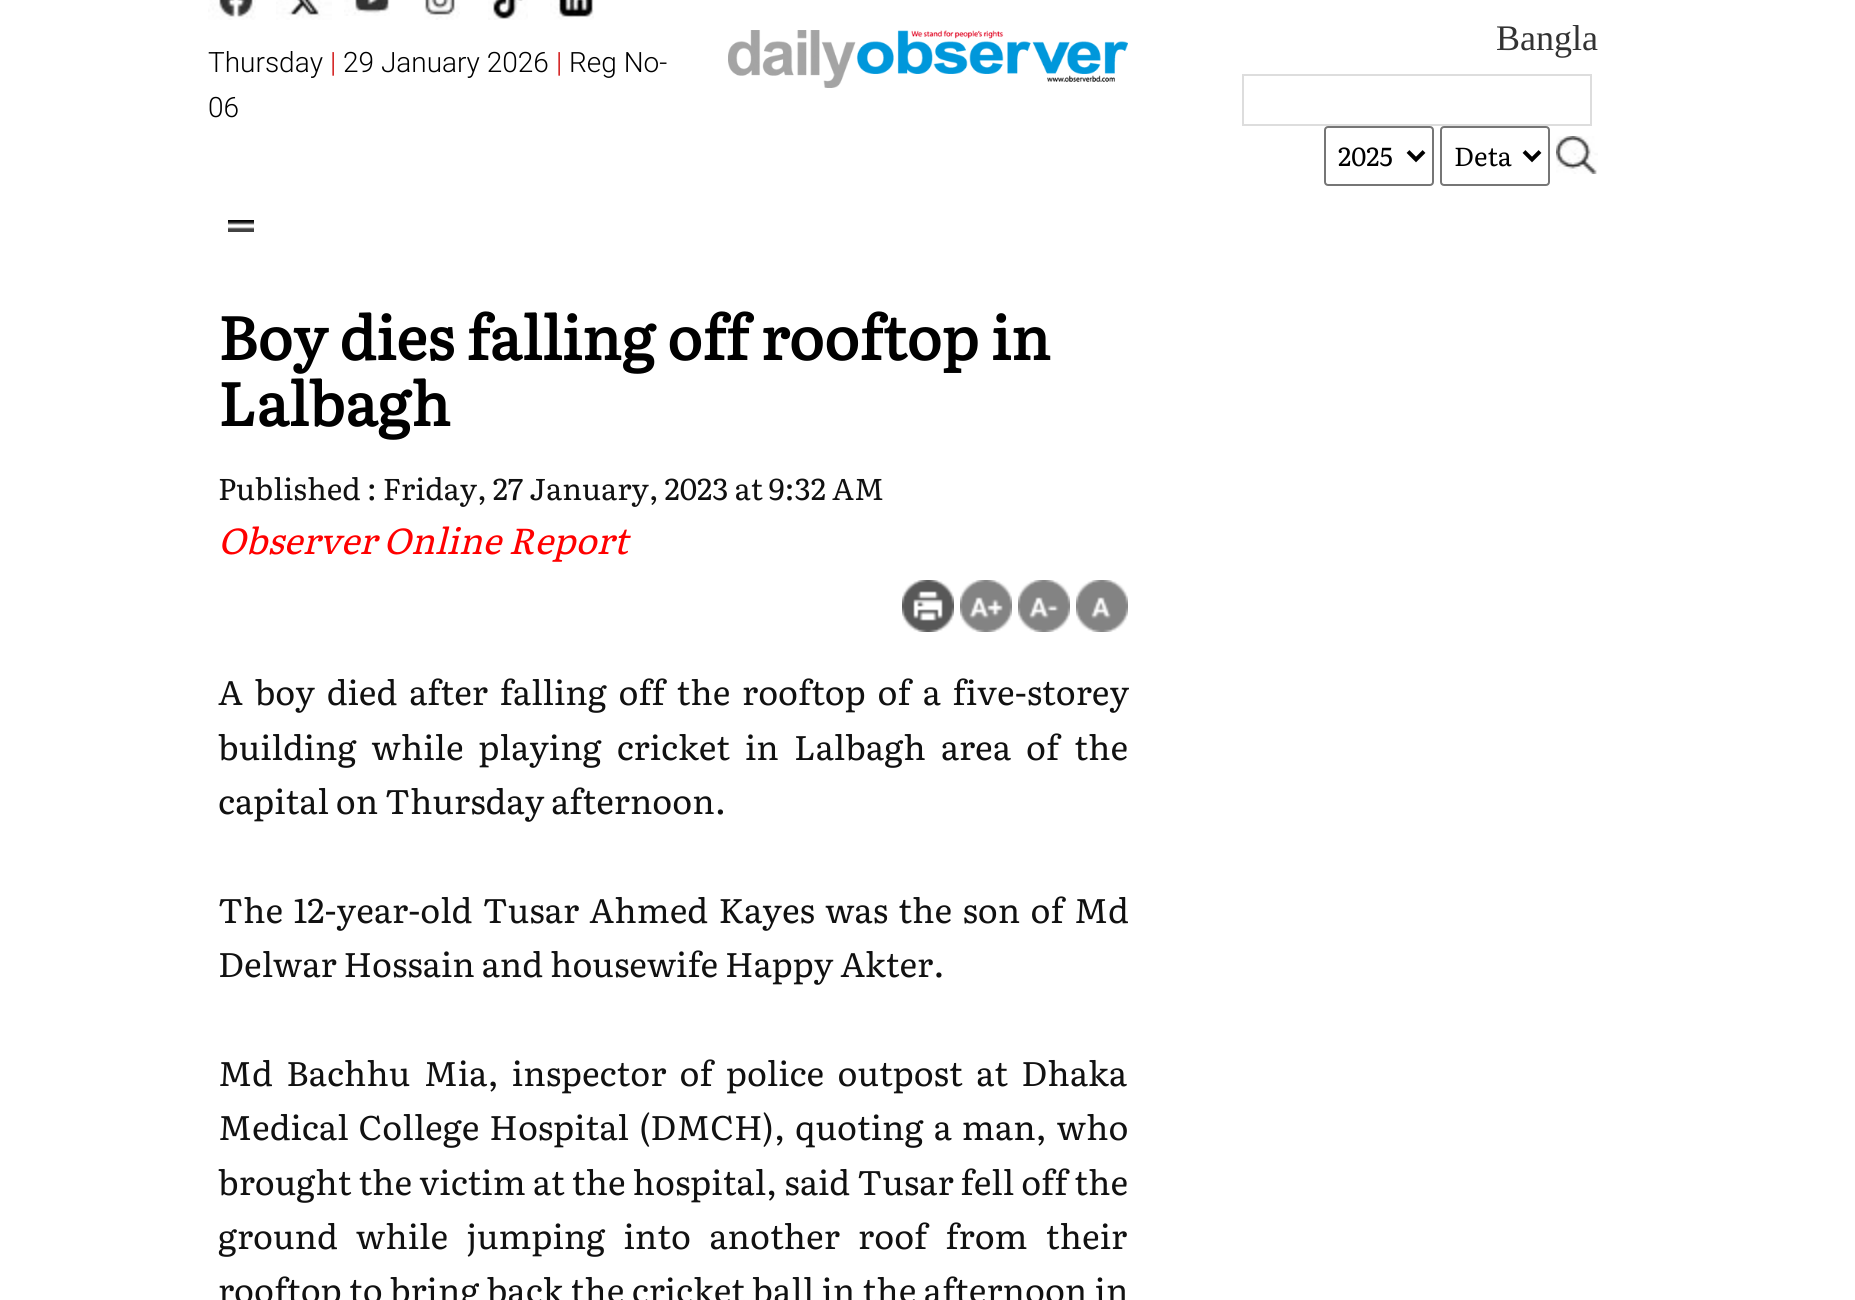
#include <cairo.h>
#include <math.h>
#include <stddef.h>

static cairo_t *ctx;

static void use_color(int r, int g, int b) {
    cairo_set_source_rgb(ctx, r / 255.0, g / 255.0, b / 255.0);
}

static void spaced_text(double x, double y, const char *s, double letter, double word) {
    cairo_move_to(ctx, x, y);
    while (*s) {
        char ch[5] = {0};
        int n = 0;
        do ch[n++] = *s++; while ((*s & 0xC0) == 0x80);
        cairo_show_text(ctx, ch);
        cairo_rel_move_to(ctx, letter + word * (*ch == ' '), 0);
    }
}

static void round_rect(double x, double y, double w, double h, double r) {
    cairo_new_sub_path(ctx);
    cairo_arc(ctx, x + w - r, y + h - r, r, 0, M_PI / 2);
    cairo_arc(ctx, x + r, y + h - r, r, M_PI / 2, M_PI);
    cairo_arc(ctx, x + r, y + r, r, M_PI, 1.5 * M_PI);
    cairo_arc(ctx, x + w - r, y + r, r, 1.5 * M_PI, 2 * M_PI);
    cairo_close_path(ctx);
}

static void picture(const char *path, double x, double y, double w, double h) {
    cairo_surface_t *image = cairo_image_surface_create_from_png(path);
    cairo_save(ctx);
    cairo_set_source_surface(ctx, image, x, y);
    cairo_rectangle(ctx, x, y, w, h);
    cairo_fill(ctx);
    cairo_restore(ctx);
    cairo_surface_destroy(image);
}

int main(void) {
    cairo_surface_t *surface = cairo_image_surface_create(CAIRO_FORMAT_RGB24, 1855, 1300);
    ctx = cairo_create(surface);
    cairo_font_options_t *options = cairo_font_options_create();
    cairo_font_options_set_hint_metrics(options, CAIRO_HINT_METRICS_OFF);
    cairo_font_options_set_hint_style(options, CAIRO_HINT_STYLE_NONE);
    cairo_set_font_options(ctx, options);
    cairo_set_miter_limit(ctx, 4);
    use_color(255, 255, 255);
    cairo_paint(ctx);
    picture("img1.png", 208, 0, 48, 20);
    picture("img2.png", 276, 0, 56, 20);
    picture("img3.png", 344, 0, 46, 16);
    picture("img4.png", 424, 0, 36, 20);
    picture("img5.png", 488, 0, 40, 20);
    picture("img6.png", 550, 0, 44, 20);
    cairo_select_font_face(ctx, "Roboto Light", CAIRO_FONT_SLANT_NORMAL, CAIRO_FONT_WEIGHT_NORMAL);
    cairo_set_font_size(ctx, 28);
    use_color(0, 0, 0);
    cairo_move_to(ctx, 208, 72);
    cairo_show_text(ctx, "Thursday");
    use_color(204, 0, 0);
    cairo_move_to(ctx, 330, 72);
    cairo_show_text(ctx, "|");
    use_color(0, 0, 0);
    cairo_move_to(ctx, 343, 72);
    cairo_show_text(ctx, "29 January 2026");
    use_color(204, 0, 0);
    cairo_move_to(ctx, 556, 72);
    cairo_show_text(ctx, "|");
    use_color(0, 0, 0);
    cairo_move_to(ctx, 569, 72);
    cairo_show_text(ctx, "Reg No-");
    cairo_move_to(ctx, 208, 117);
    cairo_show_text(ctx, "06");
    picture("img7.png", 728, 30, 400, 58);
    cairo_select_font_face(ctx, "Liberation Serif", CAIRO_FONT_SLANT_NORMAL, CAIRO_FONT_WEIGHT_NORMAL);
    cairo_set_font_size(ctx, 36);
    use_color(51, 51, 51);
    cairo_move_to(ctx, 1496, 50);
    cairo_show_text(ctx, "Bangla");
    cairo_rectangle(ctx, 1243, 75, 348, 50);
    use_color(221, 221, 221);
    cairo_stroke(ctx);
    round_rect(1325, 127, 108, 58, 3);
    use_color(118, 118, 118);
    cairo_stroke(ctx);
    cairo_new_path(ctx);
    cairo_move_to(ctx, 1408, 151.5);
    cairo_line_to(ctx, 1416, 159.5);
    cairo_line_to(ctx, 1424, 151.5);
    use_color(0, 0, 0);
    cairo_set_line_width(ctx, 4);
    cairo_stroke(ctx);
    cairo_select_font_face(ctx, "Literata", CAIRO_FONT_SLANT_NORMAL, CAIRO_FONT_WEIGHT_NORMAL);
    cairo_set_font_size(ctx, 26);
    cairo_move_to(ctx, 1338, 166);
    cairo_show_text(ctx, "2025");
    round_rect(1441, 127, 108, 58, 3);
    use_color(118, 118, 118);
    cairo_set_line_width(ctx, 2);
    cairo_stroke(ctx);
    cairo_new_path(ctx);
    cairo_move_to(ctx, 1524, 151.5);
    cairo_line_to(ctx, 1532, 159.5);
    cairo_line_to(ctx, 1540, 151.5);
    use_color(0, 0, 0);
    cairo_set_line_width(ctx, 4);
    cairo_stroke(ctx);
    cairo_move_to(ctx, 1454, 166);
    cairo_show_text(ctx, "Deta");
    picture("img8.png", 1556, 136, 42, 38);
    picture("img9.png", 228, 220, 26, 12);
    cairo_select_font_face(ctx, "Literata", CAIRO_FONT_SLANT_NORMAL, CAIRO_FONT_WEIGHT_BOLD);
    cairo_set_font_size(ctx, 60);
    cairo_move_to(ctx, 218, 360);
    cairo_show_text(ctx, "Boy dies falling off rooftop in");
    cairo_move_to(ctx, 218, 426);
    cairo_show_text(ctx, "Lalbagh");
    cairo_select_font_face(ctx, "Literata", CAIRO_FONT_SLANT_NORMAL, CAIRO_FONT_WEIGHT_NORMAL);
    cairo_set_font_size(ctx, 30);
    use_color(17, 17, 17);
    cairo_move_to(ctx, 218, 500);
    cairo_show_text(ctx, "Published : Friday, 27 January, 2023 at 9:32 AM");
    cairo_select_font_face(ctx, "Literata", CAIRO_FONT_SLANT_ITALIC, CAIRO_FONT_WEIGHT_NORMAL);
    cairo_set_font_size(ctx, 36);
    use_color(255, 0, 0);
    cairo_move_to(ctx, 218, 554);
    cairo_show_text(ctx, "Observer Online Report");
    picture("img10.png", 902, 580, 52, 52);
    picture("img11.png", 960, 580, 52, 52);
    picture("img12.png", 1018, 580, 52, 52);
    picture("img13.png", 1076, 580, 52, 52);
    cairo_select_font_face(ctx, "Literata", CAIRO_FONT_SLANT_NORMAL, CAIRO_FONT_WEIGHT_NORMAL);
    cairo_set_font_size(ctx, 34);
    use_color(17, 17, 17);
    spaced_text(218, 705, "A boy died after falling off the rooftop of a five-storey", 0, 5);
    spaced_text(218, 760, "building while playing cricket in Lalbagh area of the", 0, 8.25);
    cairo_move_to(ctx, 218, 814);
    cairo_show_text(ctx, "capital on Thursday afternoon.");
    spaced_text(218, 923, "The 12-year-old Tusar Ahmed Kayes was the son of Md", 0, 3.5);
    cairo_move_to(ctx, 218, 977);
    cairo_show_text(ctx, "Delwar Hossain and housewife Happy Akter.");
    spaced_text(218, 1086, "Md Bachhu Mia, inspector of police outpost at Dhaka", 0, 6.5);
    spaced_text(218, 1140, "Medical College Hospital (DMCH), quoting a man, who", 0, 3.25);
    spaced_text(218, 1195, "brought the victim at the hospital, said Tusar fell off the", 0, 0.25);
    spaced_text(218, 1249, "ground while jumping into another roof from their", 0, 11.5);
    spaced_text(218, 1303, "rooftop to bring back the cricket ball in the afternoon in", 0, 0.5);
    cairo_surface_write_to_png(surface, "result.png");
    cairo_font_options_destroy(options);
    cairo_destroy(ctx);
    cairo_surface_destroy(surface);
    return 0;
}
